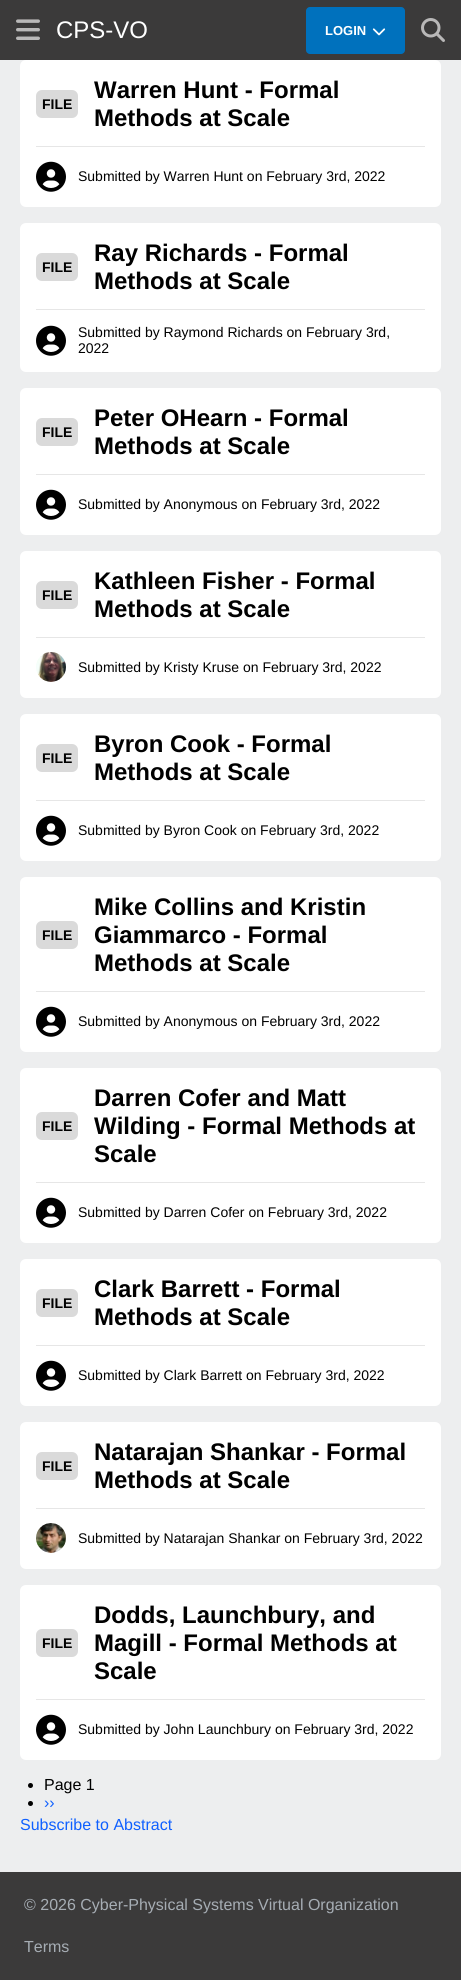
#include <cairo.h>
#include <math.h>
#include <stddef.h>

static cairo_t *ctx;

static void use_color(int r, int g, int b) {
    cairo_set_source_rgb(ctx, r / 255.0, g / 255.0, b / 255.0);
}

static void round_rect(double x, double y, double w, double h, double r) {
    cairo_new_sub_path(ctx);
    cairo_arc(ctx, x + w - r, y + h - r, r, 0, M_PI / 2);
    cairo_arc(ctx, x + r, y + h - r, r, M_PI / 2, M_PI);
    cairo_arc(ctx, x + r, y + r, r, M_PI, 1.5 * M_PI);
    cairo_arc(ctx, x + w - r, y + r, r, 1.5 * M_PI, 2 * M_PI);
    cairo_close_path(ctx);
}

static void picture(const char *path, double x, double y, double w, double h) {
    cairo_surface_t *image = cairo_image_surface_create_from_png(path);
    cairo_save(ctx);
    cairo_set_source_surface(ctx, image, x, y);
    cairo_rectangle(ctx, x, y, w, h);
    cairo_fill(ctx);
    cairo_restore(ctx);
    cairo_surface_destroy(image);
}

int main(void) {
    cairo_surface_t *surface = cairo_image_surface_create(CAIRO_FORMAT_RGB24, 461, 1980);
    ctx = cairo_create(surface);
    cairo_font_options_t *options = cairo_font_options_create();
    cairo_font_options_set_hint_metrics(options, CAIRO_HINT_METRICS_OFF);
    cairo_font_options_set_hint_style(options, CAIRO_HINT_STYLE_NONE);
    cairo_set_font_options(ctx, options);
    cairo_set_miter_limit(ctx, 4);
    use_color(237, 238, 239);
    cairo_paint(ctx);
    use_color(59, 58, 58);
    cairo_rectangle(ctx, 0, 0, 461, 60);
    cairo_fill(ctx);
    picture("img1.png", 16, 19, 24, 21);
    cairo_select_font_face(ctx, "Liberation Sans", CAIRO_FONT_SLANT_NORMAL, CAIRO_FONT_WEIGHT_NORMAL);
    cairo_set_font_size(ctx, 24);
    use_color(255, 255, 255);
    cairo_move_to(ctx, 56, 38);
    cairo_show_text(ctx, "CPS-VO");
    use_color(0, 113, 189);
    round_rect(306, 7, 99, 47, 4);
    cairo_fill(ctx);
    cairo_select_font_face(ctx, "Liberation Sans", CAIRO_FONT_SLANT_NORMAL, CAIRO_FONT_WEIGHT_BOLD);
    cairo_set_font_size(ctx, 13);
    use_color(255, 255, 255);
    cairo_move_to(ctx, 325, 35);
    cairo_show_text(ctx, "LOGIN");
    picture("img2.png", 372, 28, 14, 8);
    picture("img3.png", 421, 18, 24, 24);
    round_rect(20, 60, 421, 147, 6);
    cairo_fill(ctx);
    use_color(218, 218, 218);
    round_rect(36, 90, 42, 28, 6);
    cairo_fill(ctx);
    cairo_set_font_size(ctx, 14);
    use_color(0, 0, 0);
    cairo_move_to(ctx, 42, 109);
    cairo_show_text(ctx, "FILE");
    cairo_set_font_size(ctx, 24);
    cairo_move_to(ctx, 94, 98);
    cairo_show_text(ctx, "Warren Hunt - Formal");
    cairo_move_to(ctx, 94, 126);
    cairo_show_text(ctx, "Methods at Scale");
    use_color(230, 230, 230);
    cairo_rectangle(ctx, 36, 146, 389, 1);
    cairo_fill(ctx);
    picture("img4.png", 36, 161, 30, 31);
    cairo_select_font_face(ctx, "Liberation Sans", CAIRO_FONT_SLANT_NORMAL, CAIRO_FONT_WEIGHT_NORMAL);
    cairo_set_font_size(ctx, 14);
    use_color(0, 0, 0);
    cairo_move_to(ctx, 78, 181);
    cairo_show_text(ctx, "Submitted by Warren Hunt on February 3rd, 2022");
    use_color(255, 255, 255);
    round_rect(20, 223, 421, 149, 6);
    cairo_fill(ctx);
    use_color(218, 218, 218);
    round_rect(36, 253, 42, 28, 6);
    cairo_fill(ctx);
    cairo_select_font_face(ctx, "Liberation Sans", CAIRO_FONT_SLANT_NORMAL, CAIRO_FONT_WEIGHT_BOLD);
    use_color(0, 0, 0);
    cairo_move_to(ctx, 42, 272);
    cairo_show_text(ctx, "FILE");
    cairo_set_font_size(ctx, 24);
    cairo_move_to(ctx, 94, 261);
    cairo_show_text(ctx, "Ray Richards - Formal");
    cairo_move_to(ctx, 94, 289);
    cairo_show_text(ctx, "Methods at Scale");
    use_color(230, 230, 230);
    cairo_rectangle(ctx, 36, 309, 389, 1);
    cairo_fill(ctx);
    picture("img4.png", 36, 325, 30, 31);
    cairo_select_font_face(ctx, "Liberation Sans", CAIRO_FONT_SLANT_NORMAL, CAIRO_FONT_WEIGHT_NORMAL);
    cairo_set_font_size(ctx, 14);
    use_color(0, 0, 0);
    cairo_move_to(ctx, 78, 337);
    cairo_show_text(ctx, "Submitted by Raymond Richards on February 3rd,");
    cairo_move_to(ctx, 78, 353);
    cairo_show_text(ctx, "2022");
    use_color(255, 255, 255);
    round_rect(20, 388, 421, 147, 6);
    cairo_fill(ctx);
    use_color(218, 218, 218);
    round_rect(36, 418, 42, 28, 6);
    cairo_fill(ctx);
    cairo_select_font_face(ctx, "Liberation Sans", CAIRO_FONT_SLANT_NORMAL, CAIRO_FONT_WEIGHT_BOLD);
    use_color(0, 0, 0);
    cairo_move_to(ctx, 42, 437);
    cairo_show_text(ctx, "FILE");
    cairo_set_font_size(ctx, 24);
    cairo_move_to(ctx, 94, 426);
    cairo_show_text(ctx, "Peter OHearn - Formal");
    cairo_move_to(ctx, 94, 454);
    cairo_show_text(ctx, "Methods at Scale");
    use_color(230, 230, 230);
    cairo_rectangle(ctx, 36, 474, 389, 1);
    cairo_fill(ctx);
    picture("img4.png", 36, 489, 30, 31);
    cairo_select_font_face(ctx, "Liberation Sans", CAIRO_FONT_SLANT_NORMAL, CAIRO_FONT_WEIGHT_NORMAL);
    cairo_set_font_size(ctx, 14);
    use_color(0, 0, 0);
    cairo_move_to(ctx, 78, 509);
    cairo_show_text(ctx, "Submitted by Anonymous on February 3rd, 2022");
    use_color(255, 255, 255);
    round_rect(20, 551, 421, 147, 6);
    cairo_fill(ctx);
    use_color(218, 218, 218);
    round_rect(36, 581, 42, 28, 6);
    cairo_fill(ctx);
    cairo_select_font_face(ctx, "Liberation Sans", CAIRO_FONT_SLANT_NORMAL, CAIRO_FONT_WEIGHT_BOLD);
    use_color(0, 0, 0);
    cairo_move_to(ctx, 42, 600);
    cairo_show_text(ctx, "FILE");
    cairo_set_font_size(ctx, 24);
    cairo_move_to(ctx, 94, 589);
    cairo_show_text(ctx, "Kathleen Fisher - Formal");
    cairo_move_to(ctx, 94, 617);
    cairo_show_text(ctx, "Methods at Scale");
    use_color(230, 230, 230);
    cairo_rectangle(ctx, 36, 637, 389, 1);
    cairo_fill(ctx);
    picture("img5.png", 36, 652, 30, 30);
    cairo_select_font_face(ctx, "Liberation Sans", CAIRO_FONT_SLANT_NORMAL, CAIRO_FONT_WEIGHT_NORMAL);
    cairo_set_font_size(ctx, 14);
    use_color(0, 0, 0);
    cairo_move_to(ctx, 78, 672);
    cairo_show_text(ctx, "Submitted by Kristy Kruse on February 3rd, 2022");
    use_color(255, 255, 255);
    round_rect(20, 714, 421, 147, 6);
    cairo_fill(ctx);
    use_color(218, 218, 218);
    round_rect(36, 744, 42, 28, 6);
    cairo_fill(ctx);
    cairo_select_font_face(ctx, "Liberation Sans", CAIRO_FONT_SLANT_NORMAL, CAIRO_FONT_WEIGHT_BOLD);
    use_color(0, 0, 0);
    cairo_move_to(ctx, 42, 763);
    cairo_show_text(ctx, "FILE");
    cairo_set_font_size(ctx, 24);
    cairo_move_to(ctx, 94, 752);
    cairo_show_text(ctx, "Byron Cook - Formal");
    cairo_move_to(ctx, 94, 780);
    cairo_show_text(ctx, "Methods at Scale");
    use_color(230, 230, 230);
    cairo_rectangle(ctx, 36, 800, 389, 1);
    cairo_fill(ctx);
    picture("img4.png", 36, 815, 30, 31);
    cairo_select_font_face(ctx, "Liberation Sans", CAIRO_FONT_SLANT_NORMAL, CAIRO_FONT_WEIGHT_NORMAL);
    cairo_set_font_size(ctx, 14);
    use_color(0, 0, 0);
    cairo_move_to(ctx, 78, 835);
    cairo_show_text(ctx, "Submitted by Byron Cook on February 3rd, 2022");
    use_color(255, 255, 255);
    round_rect(20, 877, 421, 175, 6);
    cairo_fill(ctx);
    use_color(218, 218, 218);
    round_rect(36, 921, 42, 28, 6);
    cairo_fill(ctx);
    cairo_select_font_face(ctx, "Liberation Sans", CAIRO_FONT_SLANT_NORMAL, CAIRO_FONT_WEIGHT_BOLD);
    use_color(0, 0, 0);
    cairo_move_to(ctx, 42, 940);
    cairo_show_text(ctx, "FILE");
    cairo_set_font_size(ctx, 24);
    cairo_move_to(ctx, 94, 915);
    cairo_show_text(ctx, "Mike Collins and Kristin");
    cairo_move_to(ctx, 94, 943);
    cairo_show_text(ctx, "Giammarco - Formal");
    cairo_move_to(ctx, 94, 971);
    cairo_show_text(ctx, "Methods at Scale");
    use_color(230, 230, 230);
    cairo_rectangle(ctx, 36, 991, 389, 1);
    cairo_fill(ctx);
    picture("img4.png", 36, 1006, 30, 31);
    cairo_select_font_face(ctx, "Liberation Sans", CAIRO_FONT_SLANT_NORMAL, CAIRO_FONT_WEIGHT_NORMAL);
    cairo_set_font_size(ctx, 14);
    use_color(0, 0, 0);
    cairo_move_to(ctx, 78, 1026);
    cairo_show_text(ctx, "Submitted by Anonymous on February 3rd, 2022");
    use_color(255, 255, 255);
    round_rect(20, 1068, 421, 175, 6);
    cairo_fill(ctx);
    use_color(218, 218, 218);
    round_rect(36, 1112, 42, 28, 6);
    cairo_fill(ctx);
    cairo_select_font_face(ctx, "Liberation Sans", CAIRO_FONT_SLANT_NORMAL, CAIRO_FONT_WEIGHT_BOLD);
    use_color(0, 0, 0);
    cairo_move_to(ctx, 42, 1131);
    cairo_show_text(ctx, "FILE");
    cairo_set_font_size(ctx, 24);
    cairo_move_to(ctx, 94, 1106);
    cairo_show_text(ctx, "Darren Cofer and Matt");
    cairo_move_to(ctx, 94, 1134);
    cairo_show_text(ctx, "Wilding - Formal Methods at");
    cairo_move_to(ctx, 94, 1162);
    cairo_show_text(ctx, "Scale");
    use_color(230, 230, 230);
    cairo_rectangle(ctx, 36, 1182, 389, 1);
    cairo_fill(ctx);
    picture("img4.png", 36, 1197, 30, 31);
    cairo_select_font_face(ctx, "Liberation Sans", CAIRO_FONT_SLANT_NORMAL, CAIRO_FONT_WEIGHT_NORMAL);
    cairo_set_font_size(ctx, 14);
    use_color(0, 0, 0);
    cairo_move_to(ctx, 78, 1217);
    cairo_show_text(ctx, "Submitted by Darren Cofer on February 3rd, 2022");
    use_color(255, 255, 255);
    round_rect(20, 1259, 421, 147, 6);
    cairo_fill(ctx);
    use_color(218, 218, 218);
    round_rect(36, 1289, 42, 28, 6);
    cairo_fill(ctx);
    cairo_select_font_face(ctx, "Liberation Sans", CAIRO_FONT_SLANT_NORMAL, CAIRO_FONT_WEIGHT_BOLD);
    use_color(0, 0, 0);
    cairo_move_to(ctx, 42, 1308);
    cairo_show_text(ctx, "FILE");
    cairo_set_font_size(ctx, 24);
    cairo_move_to(ctx, 94, 1297);
    cairo_show_text(ctx, "Clark Barrett - Formal");
    cairo_move_to(ctx, 94, 1325);
    cairo_show_text(ctx, "Methods at Scale");
    use_color(230, 230, 230);
    cairo_rectangle(ctx, 36, 1345, 389, 1);
    cairo_fill(ctx);
    picture("img4.png", 36, 1360, 30, 31);
    cairo_select_font_face(ctx, "Liberation Sans", CAIRO_FONT_SLANT_NORMAL, CAIRO_FONT_WEIGHT_NORMAL);
    cairo_set_font_size(ctx, 14);
    use_color(0, 0, 0);
    cairo_move_to(ctx, 78, 1380);
    cairo_show_text(ctx, "Submitted by Clark Barrett on February 3rd, 2022");
    use_color(255, 255, 255);
    round_rect(20, 1422, 421, 147, 6);
    cairo_fill(ctx);
    use_color(218, 218, 218);
    round_rect(36, 1452, 42, 28, 6);
    cairo_fill(ctx);
    cairo_select_font_face(ctx, "Liberation Sans", CAIRO_FONT_SLANT_NORMAL, CAIRO_FONT_WEIGHT_BOLD);
    use_color(0, 0, 0);
    cairo_move_to(ctx, 42, 1471);
    cairo_show_text(ctx, "FILE");
    cairo_set_font_size(ctx, 24);
    cairo_move_to(ctx, 94, 1460);
    cairo_show_text(ctx, "Natarajan Shankar - Formal");
    cairo_move_to(ctx, 94, 1488);
    cairo_show_text(ctx, "Methods at Scale");
    use_color(230, 230, 230);
    cairo_rectangle(ctx, 36, 1508, 389, 1);
    cairo_fill(ctx);
    picture("img6.png", 36, 1523, 30, 30);
    cairo_select_font_face(ctx, "Liberation Sans", CAIRO_FONT_SLANT_NORMAL, CAIRO_FONT_WEIGHT_NORMAL);
    cairo_set_font_size(ctx, 14);
    use_color(0, 0, 0);
    cairo_move_to(ctx, 78, 1543);
    cairo_show_text(ctx, "Submitted by Natarajan Shankar on February 3rd, 2022");
    use_color(255, 255, 255);
    round_rect(20, 1585, 421, 175, 6);
    cairo_fill(ctx);
    use_color(218, 218, 218);
    round_rect(36, 1629, 42, 28, 6);
    cairo_fill(ctx);
    cairo_select_font_face(ctx, "Liberation Sans", CAIRO_FONT_SLANT_NORMAL, CAIRO_FONT_WEIGHT_BOLD);
    use_color(0, 0, 0);
    cairo_move_to(ctx, 42, 1648);
    cairo_show_text(ctx, "FILE");
    cairo_set_font_size(ctx, 24);
    cairo_move_to(ctx, 94, 1623);
    cairo_show_text(ctx, "Dodds, Launchbury, and");
    cairo_move_to(ctx, 94, 1651);
    cairo_show_text(ctx, "Magill - Formal Methods at");
    cairo_move_to(ctx, 94, 1679);
    cairo_show_text(ctx, "Scale");
    use_color(230, 230, 230);
    cairo_rectangle(ctx, 36, 1699, 389, 1);
    cairo_fill(ctx);
    picture("img4.png", 36, 1714, 30, 31);
    cairo_select_font_face(ctx, "Liberation Sans", CAIRO_FONT_SLANT_NORMAL, CAIRO_FONT_WEIGHT_NORMAL);
    cairo_set_font_size(ctx, 14);
    use_color(0, 0, 0);
    cairo_move_to(ctx, 78, 1734);
    cairo_show_text(ctx, "Submitted by John Launchbury on February 3rd, 2022");
    cairo_new_path(ctx);
    cairo_arc(ctx, 30.5, 1785.5, 2.5, 0, 2 * M_PI);
    cairo_fill(ctx);
    cairo_set_font_size(ctx, 16);
    cairo_move_to(ctx, 44, 1790);
    cairo_show_text(ctx, "Page 1");
    cairo_new_path(ctx);
    cairo_arc(ctx, 30.5, 1803.5, 2.5, 0, 2 * M_PI);
    cairo_fill(ctx);
    use_color(15, 96, 255);
    cairo_move_to(ctx, 44, 1808);
    cairo_show_text(ctx, "››");
    cairo_move_to(ctx, 20, 1830);
    cairo_show_text(ctx, "Subscribe to Abstract");
    use_color(59, 58, 58);
    cairo_rectangle(ctx, 0, 1872, 461, 108);
    cairo_fill(ctx);
    use_color(166, 173, 180);
    cairo_move_to(ctx, 24, 1910);
    cairo_show_text(ctx, "© 2026 Cyber-Physical Systems Virtual Organization");
    cairo_move_to(ctx, 24, 1952);
    cairo_show_text(ctx, "Terms");
    cairo_surface_write_to_png(surface, "result.png");
    cairo_font_options_destroy(options);
    cairo_destroy(ctx);
    cairo_surface_destroy(surface);
    return 0;
}
